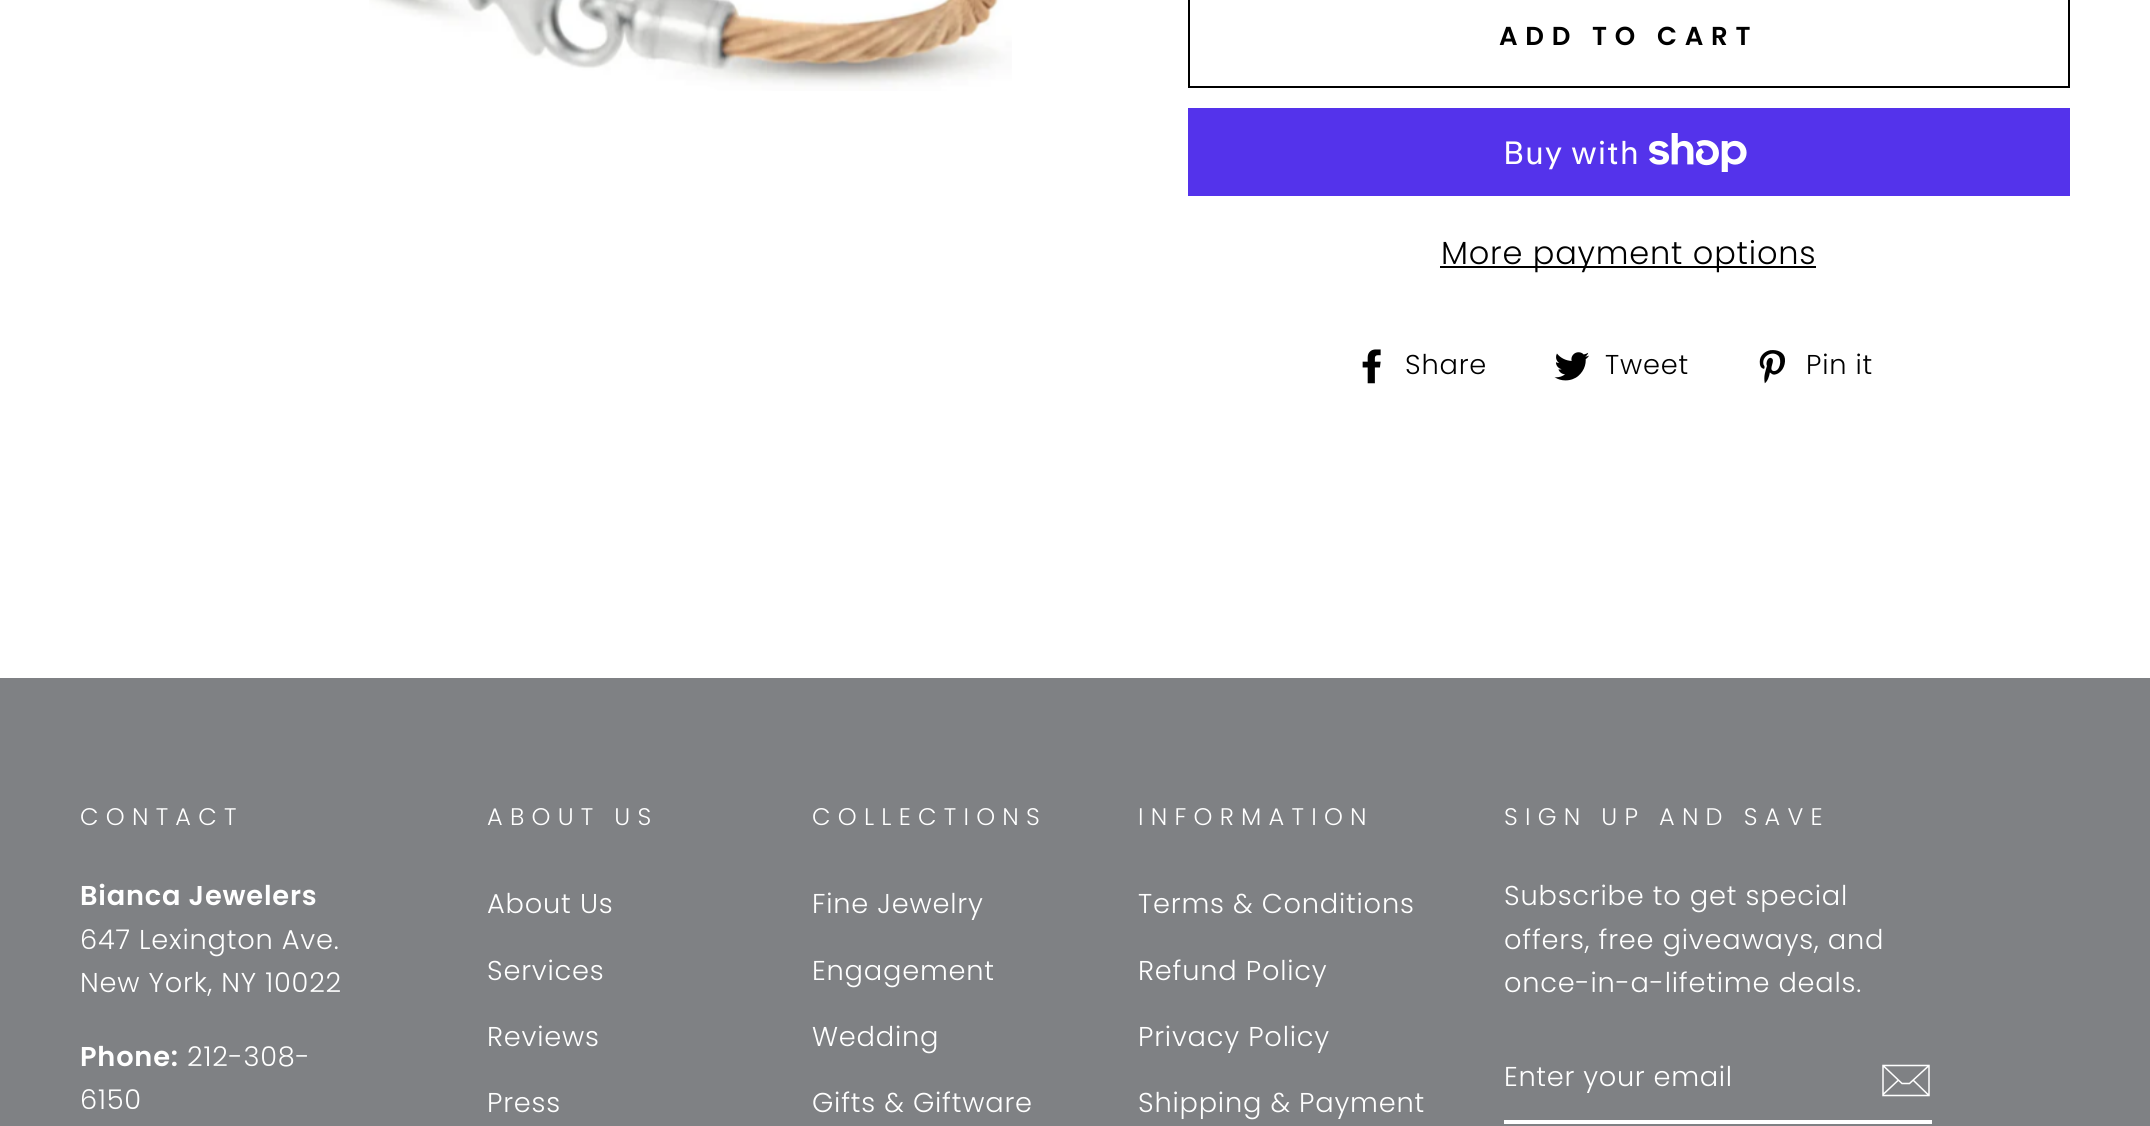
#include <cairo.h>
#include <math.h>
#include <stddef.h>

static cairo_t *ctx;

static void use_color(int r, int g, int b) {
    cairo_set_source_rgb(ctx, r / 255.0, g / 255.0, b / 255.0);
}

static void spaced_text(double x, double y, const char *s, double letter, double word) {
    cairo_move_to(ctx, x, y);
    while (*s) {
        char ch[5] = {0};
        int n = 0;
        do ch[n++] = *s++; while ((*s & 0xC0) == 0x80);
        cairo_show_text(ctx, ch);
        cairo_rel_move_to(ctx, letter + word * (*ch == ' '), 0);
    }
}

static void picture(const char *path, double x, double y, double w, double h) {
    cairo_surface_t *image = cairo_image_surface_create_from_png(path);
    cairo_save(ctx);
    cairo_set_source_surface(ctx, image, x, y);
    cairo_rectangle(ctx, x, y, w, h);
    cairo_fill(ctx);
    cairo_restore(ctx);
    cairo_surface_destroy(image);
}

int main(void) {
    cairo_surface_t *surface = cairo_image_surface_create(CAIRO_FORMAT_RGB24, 2150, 1126);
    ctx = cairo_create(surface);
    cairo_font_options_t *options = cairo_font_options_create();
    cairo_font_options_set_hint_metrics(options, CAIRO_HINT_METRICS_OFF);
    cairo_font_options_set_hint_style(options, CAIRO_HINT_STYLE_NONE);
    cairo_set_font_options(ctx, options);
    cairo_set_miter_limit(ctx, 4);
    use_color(255, 255, 255);
    cairo_paint(ctx);
    picture("img1.png", 369, 0, 643, 91);
    cairo_rectangle(ctx, 1189, -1, 880, 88);
    use_color(0, 0, 0);
    cairo_stroke(ctx);
    cairo_select_font_face(ctx, "Poppins SemiBold", CAIRO_FONT_SLANT_NORMAL, CAIRO_FONT_WEIGHT_NORMAL);
    cairo_set_font_size(ctx, 26);
    spaced_text(1499, 45, "ADD TO CART", 7.75, 0);
    use_color(84, 51, 235);
    cairo_rectangle(ctx, 1188, 108, 882, 88);
    cairo_fill(ctx);
    cairo_select_font_face(ctx, "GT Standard", CAIRO_FONT_SLANT_NORMAL, CAIRO_FONT_WEIGHT_NORMAL);
    cairo_set_font_size(ctx, 32);
    use_color(255, 255, 255);
    spaced_text(1503, 164, "Buy with", 0.8, 0);
    picture("img2.png", 1649, 133, 98, 39);
    use_color(0, 0, 0);
    cairo_rectangle(ctx, 1440, 266, 376, 2);
    cairo_fill(ctx);
    cairo_select_font_face(ctx, "Poppins Light", CAIRO_FONT_SLANT_NORMAL, CAIRO_FONT_WEIGHT_NORMAL);
    spaced_text(1441, 264, "More payment options", 0.8, 0);
    picture("img3.png", 1362, 349, 19, 35);
    cairo_set_font_size(ctx, 27.25);
    spaced_text(1405, 374, "Share", 0.8, 0);
    picture("img4.png", 1554, 352, 35, 29);
    spaced_text(1605, 374, "Tweet", 0.8, 0);
    picture("img5.png", 1759, 350, 26, 34);
    spaced_text(1806, 374, "Pin it", 0.8, 0);
    use_color(127, 129, 132);
    cairo_rectangle(ctx, 0, 678, 2150, 448);
    cairo_fill(ctx);
    cairo_set_font_size(ctx, 24);
    use_color(255, 255, 255);
    spaced_text(80, 825, "CONTACT", 7.25, 0);
    cairo_select_font_face(ctx, "Poppins SemiBold", CAIRO_FONT_SLANT_NORMAL, CAIRO_FONT_WEIGHT_NORMAL);
    cairo_set_font_size(ctx, 27.25);
    spaced_text(80, 905, "Bianca Jewelers", 0.8, 0);
    cairo_select_font_face(ctx, "Poppins Light", CAIRO_FONT_SLANT_NORMAL, CAIRO_FONT_WEIGHT_NORMAL);
    spaced_text(80, 949, "647 Lexington Ave.", 0.8, 0);
    spaced_text(80, 992, "New York, NY 10022", 0.8, 0);
    cairo_select_font_face(ctx, "Poppins SemiBold", CAIRO_FONT_SLANT_NORMAL, CAIRO_FONT_WEIGHT_NORMAL);
    spaced_text(80, 1066, "Phone:", 0.8, 0);
    cairo_select_font_face(ctx, "Poppins Light", CAIRO_FONT_SLANT_NORMAL, CAIRO_FONT_WEIGHT_NORMAL);
    spaced_text(187, 1066, "212-308-", 0.8, 0);
    spaced_text(80, 1109, "6150", 0.8, 0);
    cairo_set_font_size(ctx, 24);
    spaced_text(487, 825, "ABOUT US", 7.25, 0);
    cairo_set_font_size(ctx, 27.25);
    spaced_text(487, 913, "About Us", 0.8, 0);
    spaced_text(487, 980, "Services", 0.8, 0);
    spaced_text(487, 1046, "Reviews", 0.8, 0);
    spaced_text(487, 1112, "Press", 0.8, 0);
    cairo_set_font_size(ctx, 24);
    spaced_text(812, 825, "COLLECTIONS", 7.25, 0);
    cairo_set_font_size(ctx, 27.25);
    spaced_text(812, 913, "Fine Jewelry", 0.8, 0);
    spaced_text(812, 980, "Engagement", 0.8, 0);
    spaced_text(812, 1046, "Wedding", 0.8, 0);
    spaced_text(812, 1112, "Gifts & Giftware", 0.8, 0);
    cairo_set_font_size(ctx, 24);
    spaced_text(1138, 825, "INFORMATION", 7.25, 0);
    cairo_set_font_size(ctx, 27.25);
    spaced_text(1138, 913, "Terms & Conditions", 0.8, 0);
    spaced_text(1138, 980, "Refund Policy", 0.8, 0);
    spaced_text(1138, 1046, "Privacy Policy", 0.8, 0);
    spaced_text(1138, 1112, "Shipping & Payment", 0.8, 0);
    cairo_set_font_size(ctx, 24);
    spaced_text(1504, 825, "SIGN UP AND SAVE", 7.25, 0);
    cairo_set_font_size(ctx, 27.25);
    spaced_text(1504, 905, "Subscribe to get special", 0.8, 0);
    spaced_text(1504, 949, "offers, free giveaways, and", 0.8, 0);
    spaced_text(1504, 992, "once-in-a-lifetime deals.", 0.8, 0);
    cairo_rectangle(ctx, 1504, 1120, 428, 4);
    cairo_fill(ctx);
    spaced_text(1504, 1086, "Enter your email", 0.7, 0);
    cairo_new_path(ctx);
    cairo_move_to(ctx, 1929, 1095.5);
    cairo_line_to(ctx, 1883, 1095.5);
    cairo_line_to(ctx, 1883, 1065.5);
    cairo_line_to(ctx, 1929, 1065.5);
    cairo_close_path(ctx);
    cairo_move_to(ctx, 1883, 1065.5);
    cairo_line_to(ctx, 1902, 1083.5);
    cairo_line_to(ctx, 1909.5, 1083.5);
    cairo_line_to(ctx, 1929, 1065.5);
    cairo_move_to(ctx, 1898.5, 1080);
    cairo_line_to(ctx, 1883, 1094.5);
    cairo_move_to(ctx, 1929, 1095.5);
    cairo_line_to(ctx, 1913, 1080);
    cairo_set_line_width(ctx, 1.5);
    cairo_stroke(ctx);
    cairo_surface_write_to_png(surface, "result.png");
    cairo_font_options_destroy(options);
    cairo_destroy(ctx);
    cairo_surface_destroy(surface);
    return 0;
}
